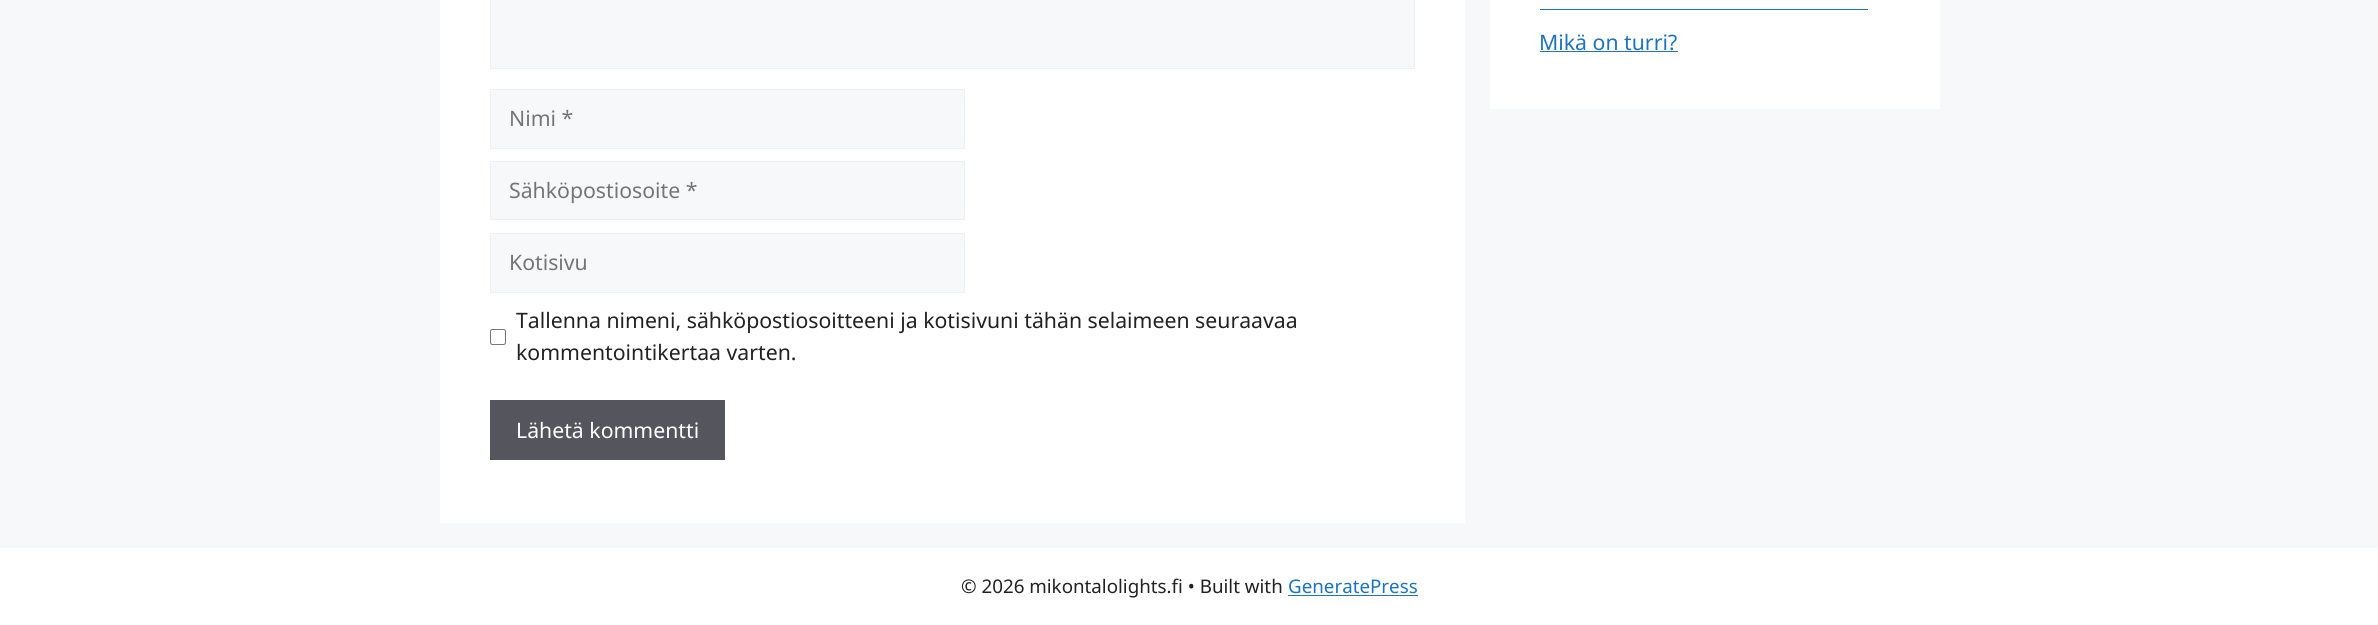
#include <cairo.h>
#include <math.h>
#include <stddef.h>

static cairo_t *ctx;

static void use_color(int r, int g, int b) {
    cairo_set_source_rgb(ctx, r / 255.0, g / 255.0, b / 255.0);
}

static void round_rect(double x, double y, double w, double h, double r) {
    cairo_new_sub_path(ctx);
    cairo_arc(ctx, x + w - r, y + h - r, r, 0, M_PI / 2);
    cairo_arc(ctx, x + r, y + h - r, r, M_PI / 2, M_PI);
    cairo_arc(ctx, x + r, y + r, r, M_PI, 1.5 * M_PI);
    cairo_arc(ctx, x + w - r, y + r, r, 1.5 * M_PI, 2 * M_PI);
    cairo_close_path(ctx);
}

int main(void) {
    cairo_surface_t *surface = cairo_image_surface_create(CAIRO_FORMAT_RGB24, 2378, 625);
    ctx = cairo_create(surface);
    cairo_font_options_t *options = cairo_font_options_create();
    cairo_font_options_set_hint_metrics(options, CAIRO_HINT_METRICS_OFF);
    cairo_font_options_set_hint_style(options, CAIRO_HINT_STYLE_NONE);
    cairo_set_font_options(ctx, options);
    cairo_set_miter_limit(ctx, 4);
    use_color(247, 248, 249);
    cairo_paint(ctx);
    use_color(255, 255, 255);
    cairo_rectangle(ctx, 1490, 0, 450, 109);
    cairo_fill(ctx);
    use_color(30, 115, 190);
    cairo_rectangle(ctx, 1540, 9, 328, 1);
    cairo_fill(ctx);
    cairo_select_font_face(ctx, "Noto Sans", CAIRO_FONT_SLANT_NORMAL, CAIRO_FONT_WEIGHT_NORMAL);
    cairo_set_font_size(ctx, 21.25);
    cairo_move_to(ctx, 1539, 50);
    cairo_show_text(ctx, "Mikä on turri?");
    cairo_rectangle(ctx, 1540, 51, 138, 1);
    cairo_fill(ctx);
    use_color(255, 255, 255);
    cairo_rectangle(ctx, 440, 0, 1025, 523);
    cairo_fill(ctx);
    use_color(247, 248, 249);
    cairo_rectangle(ctx, 490.5, -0.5, 924, 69);
    cairo_fill_preserve(ctx);
    use_color(240, 240, 240);
    cairo_set_line_width(ctx, 1);
    cairo_stroke(ctx);
    use_color(247, 248, 249);
    cairo_rectangle(ctx, 490.5, 89.5, 474, 59);
    cairo_fill_preserve(ctx);
    use_color(240, 240, 240);
    cairo_stroke(ctx);
    use_color(117, 117, 117);
    cairo_move_to(ctx, 509, 126);
    cairo_show_text(ctx, "Nimi *");
    use_color(247, 248, 249);
    cairo_rectangle(ctx, 490.5, 161.5, 474, 58);
    cairo_fill_preserve(ctx);
    use_color(240, 240, 240);
    cairo_stroke(ctx);
    use_color(117, 117, 117);
    cairo_move_to(ctx, 509, 198);
    cairo_show_text(ctx, "Sähköpostiosoite *");
    use_color(247, 248, 249);
    cairo_rectangle(ctx, 490.5, 233.5, 474, 59);
    cairo_fill_preserve(ctx);
    use_color(240, 240, 240);
    cairo_stroke(ctx);
    use_color(117, 117, 117);
    cairo_move_to(ctx, 509, 270);
    cairo_show_text(ctx, "Kotisivu");
    round_rect(490.5, 329.5, 15, 15, 2);
    use_color(118, 118, 118);
    cairo_stroke(ctx);
    use_color(34, 34, 34);
    cairo_move_to(ctx, 516, 328);
    cairo_show_text(ctx, "Tallenna nimeni, sähköpostiosoitteeni ja kotisivuni tähän selaimeen seuraavaa");
    cairo_move_to(ctx, 516, 360);
    cairo_show_text(ctx, "kommentointikertaa varten.");
    use_color(85, 85, 94);
    cairo_rectangle(ctx, 490, 400, 235, 60);
    cairo_fill(ctx);
    use_color(255, 255, 255);
    cairo_move_to(ctx, 516, 438);
    cairo_show_text(ctx, "Lähetä kommentti");
    cairo_rectangle(ctx, 0, 548, 2378, 77);
    cairo_fill(ctx);
    cairo_set_font_size(ctx, 18.75);
    use_color(34, 34, 34);
    cairo_move_to(ctx, 961, 593);
    cairo_show_text(ctx, "© 2026 mikontalolights.fi • Built with");
    use_color(30, 115, 190);
    cairo_move_to(ctx, 1288, 593);
    cairo_show_text(ctx, "GeneratePress");
    cairo_rectangle(ctx, 1288, 595, 130, 1);
    cairo_fill(ctx);
    cairo_surface_write_to_png(surface, "result.png");
    cairo_font_options_destroy(options);
    cairo_destroy(ctx);
    cairo_surface_destroy(surface);
    return 0;
}
